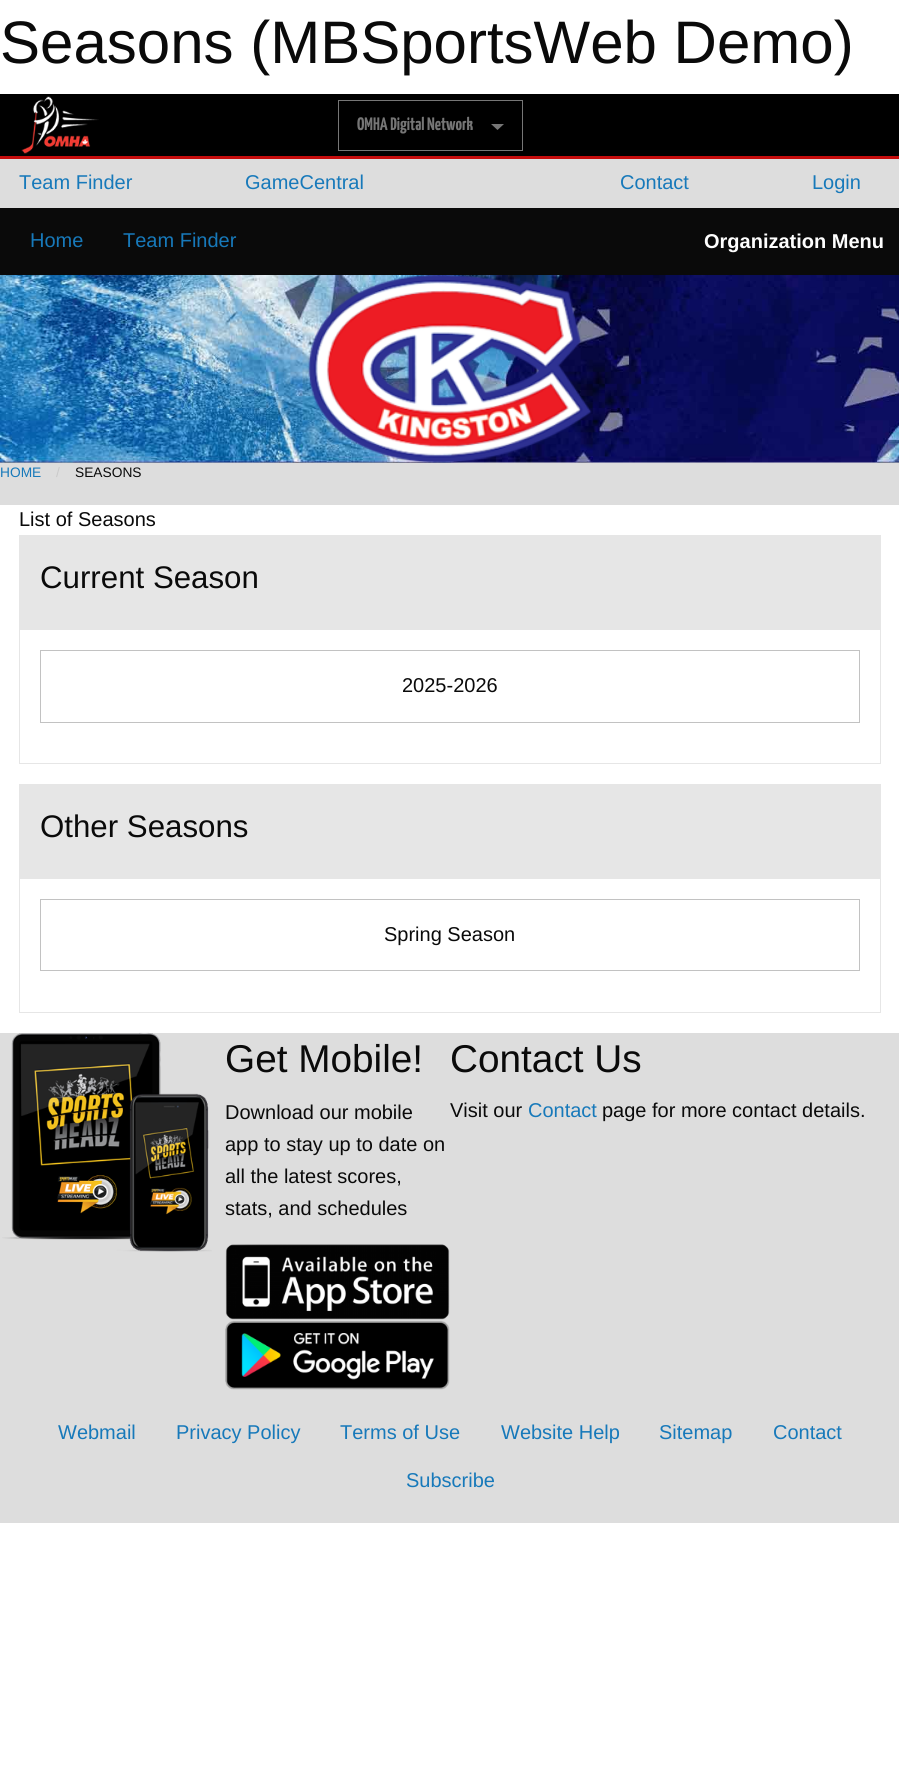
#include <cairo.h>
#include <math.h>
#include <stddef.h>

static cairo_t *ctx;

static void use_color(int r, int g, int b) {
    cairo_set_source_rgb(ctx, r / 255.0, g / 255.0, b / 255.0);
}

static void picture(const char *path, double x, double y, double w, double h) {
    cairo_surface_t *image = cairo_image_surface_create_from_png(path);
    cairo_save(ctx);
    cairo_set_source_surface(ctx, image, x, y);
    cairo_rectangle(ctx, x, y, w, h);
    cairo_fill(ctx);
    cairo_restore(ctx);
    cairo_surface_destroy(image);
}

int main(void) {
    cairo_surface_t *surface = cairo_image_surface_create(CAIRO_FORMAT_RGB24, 899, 1777);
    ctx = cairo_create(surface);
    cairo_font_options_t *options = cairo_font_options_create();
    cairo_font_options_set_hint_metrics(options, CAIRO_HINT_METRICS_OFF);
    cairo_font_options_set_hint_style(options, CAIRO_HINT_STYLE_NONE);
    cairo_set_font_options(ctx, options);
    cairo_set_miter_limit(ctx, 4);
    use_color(255, 255, 255);
    cairo_paint(ctx);
    cairo_select_font_face(ctx, "Liberation Sans", CAIRO_FONT_SLANT_NORMAL, CAIRO_FONT_WEIGHT_NORMAL);
    cairo_set_font_size(ctx, 60);
    use_color(10, 10, 10);
    cairo_move_to(ctx, 0, 63);
    cairo_show_text(ctx, "Seasons (MBSportsWeb Demo)");
    use_color(0, 0, 0);
    cairo_rectangle(ctx, 0, 94, 899, 62);
    cairo_fill(ctx);
    use_color(198, 12, 12);
    cairo_rectangle(ctx, 0, 156, 899, 3);
    cairo_fill(ctx);
    picture("img1.png", 21, 96, 78, 58);
    cairo_rectangle(ctx, 338.5, 100.5, 184, 50);
    use_color(118, 118, 118);
    cairo_set_line_width(ctx, 1);
    cairo_stroke(ctx);
    cairo_select_font_face(ctx, "Yanone Kaffeesatz ExtraLight", CAIRO_FONT_SLANT_NORMAL, CAIRO_FONT_WEIGHT_NORMAL);
    cairo_set_font_size(ctx, 18);
    cairo_move_to(ctx, 357, 130);
    cairo_show_text(ctx, "OMHA Digital Network");
    cairo_new_path(ctx);
    cairo_move_to(ctx, 491, 124);
    cairo_line_to(ctx, 504, 124);
    cairo_line_to(ctx, 497.5, 130);
    cairo_close_path(ctx);
    cairo_fill(ctx);
    use_color(221, 221, 221);
    cairo_rectangle(ctx, 0, 159, 899, 1364);
    cairo_fill(ctx);
    cairo_select_font_face(ctx, "Liberation Sans", CAIRO_FONT_SLANT_NORMAL, CAIRO_FONT_WEIGHT_NORMAL);
    cairo_set_font_size(ctx, 20);
    use_color(23, 121, 186);
    cairo_move_to(ctx, 19, 189);
    cairo_show_text(ctx, "Team Finder");
    cairo_move_to(ctx, 245, 189);
    cairo_show_text(ctx, "GameCentral");
    cairo_move_to(ctx, 620, 189);
    cairo_show_text(ctx, "Contact");
    cairo_move_to(ctx, 812, 189);
    cairo_show_text(ctx, "Login");
    use_color(10, 10, 10);
    cairo_rectangle(ctx, 0, 208, 899, 67);
    cairo_fill(ctx);
    use_color(23, 121, 186);
    cairo_move_to(ctx, 30, 247);
    cairo_show_text(ctx, "Home");
    cairo_move_to(ctx, 123, 247);
    cairo_show_text(ctx, "Team Finder");
    cairo_select_font_face(ctx, "Liberation Sans", CAIRO_FONT_SLANT_NORMAL, CAIRO_FONT_WEIGHT_BOLD);
    use_color(254, 254, 254);
    cairo_move_to(ctx, 704, 248);
    cairo_show_text(ctx, "Organization Menu");
    picture("img2.png", 0, 275, 899, 188);
    picture("img3.png", 308, 275, 284, 188);
    cairo_select_font_face(ctx, "Liberation Sans", CAIRO_FONT_SLANT_NORMAL, CAIRO_FONT_WEIGHT_NORMAL);
    cairo_set_font_size(ctx, 13.75);
    use_color(23, 121, 186);
    cairo_move_to(ctx, 0, 477);
    cairo_show_text(ctx, "HOME");
    use_color(202, 202, 202);
    cairo_move_to(ctx, 56, 477);
    cairo_show_text(ctx, "/");
    use_color(10, 10, 10);
    cairo_move_to(ctx, 75, 477);
    cairo_show_text(ctx, "SEASONS");
    use_color(255, 255, 255);
    cairo_rectangle(ctx, 0, 505, 899, 528);
    cairo_fill(ctx);
    cairo_set_font_size(ctx, 20);
    use_color(10, 10, 10);
    cairo_move_to(ctx, 19, 526);
    cairo_show_text(ctx, "List of Seasons");
    cairo_rectangle(ctx, 19.5, 535.5, 861, 228);
    use_color(230, 230, 230);
    cairo_stroke(ctx);
    cairo_rectangle(ctx, 20, 536, 860, 94);
    cairo_fill(ctx);
    cairo_set_font_size(ctx, 31.25);
    use_color(10, 10, 10);
    cairo_move_to(ctx, 40, 588);
    cairo_show_text(ctx, "Current Season");
    cairo_rectangle(ctx, 40.5, 650.5, 819, 72);
    use_color(194, 194, 194);
    cairo_stroke(ctx);
    cairo_set_font_size(ctx, 20);
    use_color(10, 10, 10);
    cairo_move_to(ctx, 402, 692);
    cairo_show_text(ctx, "2025-2026");
    cairo_rectangle(ctx, 19.5, 784.5, 861, 228);
    use_color(230, 230, 230);
    cairo_stroke(ctx);
    cairo_rectangle(ctx, 20, 785, 860, 94);
    cairo_fill(ctx);
    cairo_set_font_size(ctx, 31.25);
    use_color(10, 10, 10);
    cairo_move_to(ctx, 40, 837);
    cairo_show_text(ctx, "Other Seasons");
    cairo_rectangle(ctx, 40.5, 899.5, 819, 71);
    use_color(194, 194, 194);
    cairo_stroke(ctx);
    cairo_set_font_size(ctx, 20);
    use_color(10, 10, 10);
    cairo_move_to(ctx, 384, 941);
    cairo_show_text(ctx, "Spring Season");
    picture("img4.png", 2, 1032, 210, 220);
    cairo_set_font_size(ctx, 38.75);
    cairo_move_to(ctx, 225, 1072);
    cairo_show_text(ctx, "Get Mobile!");
    cairo_set_font_size(ctx, 20);
    cairo_move_to(ctx, 225, 1119);
    cairo_show_text(ctx, "Download our mobile");
    cairo_move_to(ctx, 225, 1151);
    cairo_show_text(ctx, "app to stay up to date on");
    cairo_move_to(ctx, 225, 1183);
    cairo_show_text(ctx, "all the latest scores,");
    cairo_move_to(ctx, 225, 1215);
    cairo_show_text(ctx, "stats, and schedules");
    picture("img5.png", 225, 1244, 225, 76);
    picture("img6.png", 225, 1320, 225, 70);
    cairo_set_font_size(ctx, 38.75);
    cairo_move_to(ctx, 450, 1072);
    cairo_show_text(ctx, "Contact Us");
    cairo_set_font_size(ctx, 20);
    cairo_move_to(ctx, 450, 1117);
    cairo_show_text(ctx, "Visit our");
    use_color(23, 121, 186);
    cairo_move_to(ctx, 528, 1117);
    cairo_show_text(ctx, "Contact");
    use_color(10, 10, 10);
    cairo_move_to(ctx, 602, 1117);
    cairo_show_text(ctx, "page for more contact details.");
    use_color(23, 121, 186);
    cairo_move_to(ctx, 58, 1439);
    cairo_show_text(ctx, "Webmail");
    cairo_move_to(ctx, 176, 1439);
    cairo_show_text(ctx, "Privacy Policy");
    cairo_move_to(ctx, 340, 1439);
    cairo_show_text(ctx, "Terms of Use");
    cairo_move_to(ctx, 501, 1439);
    cairo_show_text(ctx, "Website Help");
    cairo_move_to(ctx, 659, 1439);
    cairo_show_text(ctx, "Sitemap");
    cairo_move_to(ctx, 773, 1439);
    cairo_show_text(ctx, "Contact");
    cairo_move_to(ctx, 406, 1487);
    cairo_show_text(ctx, "Subscribe");
    cairo_surface_write_to_png(surface, "result.png");
    cairo_font_options_destroy(options);
    cairo_destroy(ctx);
    cairo_surface_destroy(surface);
    return 0;
}
